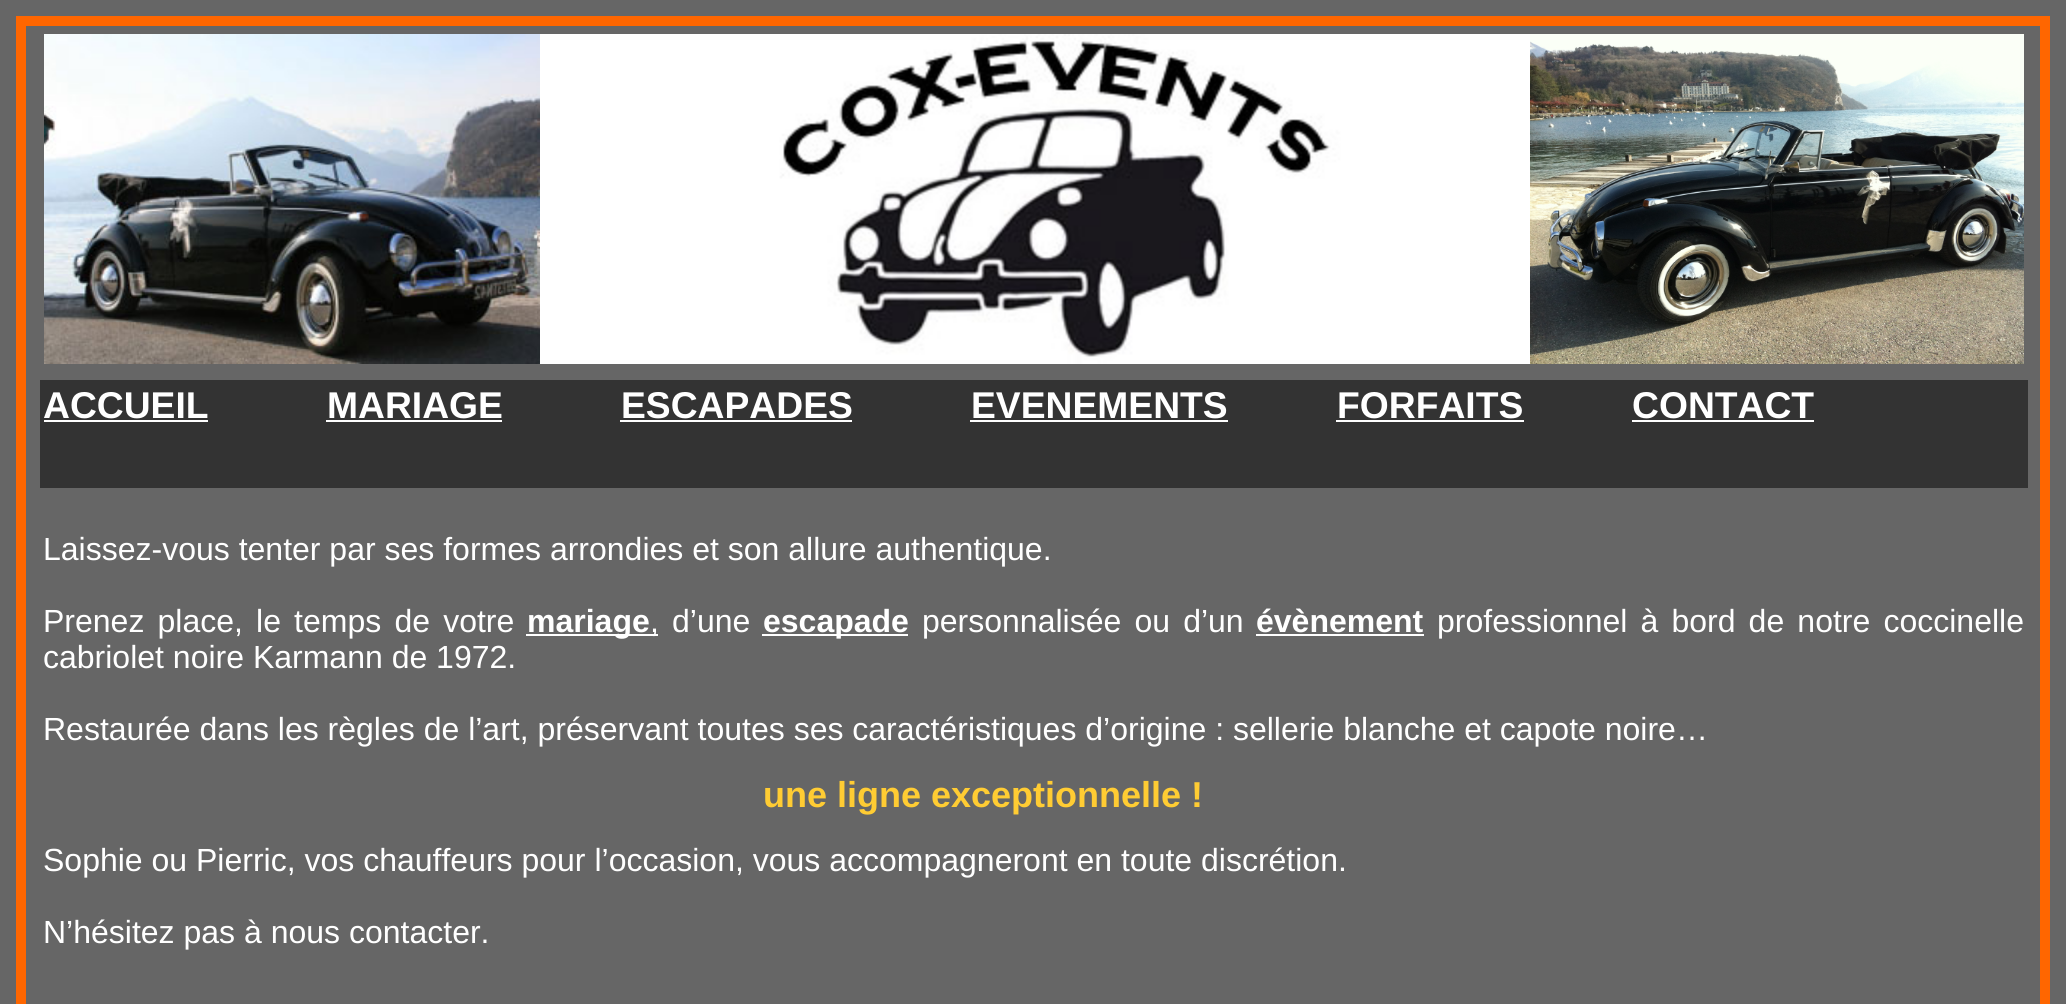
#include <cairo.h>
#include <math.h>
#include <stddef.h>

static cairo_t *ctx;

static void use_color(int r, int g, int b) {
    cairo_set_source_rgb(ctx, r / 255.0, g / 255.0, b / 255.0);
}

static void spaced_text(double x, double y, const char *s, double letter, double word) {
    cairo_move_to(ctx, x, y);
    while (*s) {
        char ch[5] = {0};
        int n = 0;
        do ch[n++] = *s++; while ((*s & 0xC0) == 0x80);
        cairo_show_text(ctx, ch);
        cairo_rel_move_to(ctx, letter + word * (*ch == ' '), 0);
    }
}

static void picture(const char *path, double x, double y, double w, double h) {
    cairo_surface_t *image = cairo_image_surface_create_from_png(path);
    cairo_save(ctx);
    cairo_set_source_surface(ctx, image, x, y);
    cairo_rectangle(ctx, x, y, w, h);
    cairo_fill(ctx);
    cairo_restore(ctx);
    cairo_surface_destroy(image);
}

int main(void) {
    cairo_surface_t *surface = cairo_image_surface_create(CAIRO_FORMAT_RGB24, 2066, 1004);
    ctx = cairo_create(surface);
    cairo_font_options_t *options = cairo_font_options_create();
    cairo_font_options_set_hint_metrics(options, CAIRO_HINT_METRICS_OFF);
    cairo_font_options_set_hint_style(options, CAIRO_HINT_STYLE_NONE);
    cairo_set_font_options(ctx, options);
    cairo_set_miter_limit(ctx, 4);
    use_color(102, 102, 102);
    cairo_paint(ctx);
    cairo_rectangle(ctx, 21, 21, 2024, 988);
    use_color(255, 102, 0);
    cairo_set_line_width(ctx, 10);
    cairo_stroke(ctx);
    picture("img1.png", 44, 34, 496, 330);
    picture("img2.png", 540, 34, 990, 330);
    picture("img3.png", 1530, 34, 494, 330);
    use_color(51, 51, 51);
    cairo_rectangle(ctx, 40, 380, 1988, 108);
    cairo_fill(ctx);
    cairo_select_font_face(ctx, "Liberation Sans", CAIRO_FONT_SLANT_NORMAL, CAIRO_FONT_WEIGHT_BOLD);
    cairo_set_font_size(ctx, 37.25);
    use_color(255, 255, 255);
    cairo_move_to(ctx, 43, 418);
    cairo_show_text(ctx, "ACCUEIL");
    cairo_rectangle(ctx, 44, 420, 164, 2);
    cairo_fill(ctx);
    cairo_move_to(ctx, 327, 418);
    cairo_show_text(ctx, "MARIAGE");
    cairo_rectangle(ctx, 326, 420, 176, 2);
    cairo_fill(ctx);
    cairo_move_to(ctx, 621, 418);
    cairo_show_text(ctx, "ESCAPADES");
    cairo_rectangle(ctx, 620, 420, 232, 2);
    cairo_fill(ctx);
    cairo_move_to(ctx, 971, 418);
    cairo_show_text(ctx, "EVENEMENTS");
    cairo_rectangle(ctx, 970, 420, 258, 2);
    cairo_fill(ctx);
    cairo_move_to(ctx, 1337, 418);
    cairo_show_text(ctx, "FORFAITS");
    cairo_rectangle(ctx, 1336, 420, 188, 2);
    cairo_fill(ctx);
    cairo_move_to(ctx, 1632, 418);
    cairo_show_text(ctx, "CONTACT");
    cairo_rectangle(ctx, 1632, 420, 182, 2);
    cairo_fill(ctx);
    cairo_select_font_face(ctx, "Liberation Sans", CAIRO_FONT_SLANT_NORMAL, CAIRO_FONT_WEIGHT_NORMAL);
    cairo_set_font_size(ctx, 32);
    cairo_move_to(ctx, 43, 560);
    cairo_show_text(ctx, "Laissez-vous tenter par ses formes arrondies et son allure authentique.");
    spaced_text(43, 632, "Prenez place, le temps de votre", 0, 4.25);
    cairo_rectangle(ctx, 526, 634, 132, 2);
    cairo_fill(ctx);
    cairo_select_font_face(ctx, "Liberation Sans", CAIRO_FONT_SLANT_NORMAL, CAIRO_FONT_WEIGHT_BOLD);
    cairo_move_to(ctx, 527, 632);
    cairo_show_text(ctx, "mariage");
    cairo_select_font_face(ctx, "Liberation Sans", CAIRO_FONT_SLANT_NORMAL, CAIRO_FONT_WEIGHT_NORMAL);
    cairo_move_to(ctx, 650, 632);
    cairo_show_text(ctx, ",");
    cairo_move_to(ctx, 672, 632);
    cairo_show_text(ctx, "d’une");
    cairo_rectangle(ctx, 762, 634, 146, 2);
    cairo_fill(ctx);
    cairo_select_font_face(ctx, "Liberation Sans", CAIRO_FONT_SLANT_NORMAL, CAIRO_FONT_WEIGHT_BOLD);
    cairo_move_to(ctx, 763, 632);
    cairo_show_text(ctx, "escapade");
    cairo_select_font_face(ctx, "Liberation Sans", CAIRO_FONT_SLANT_NORMAL, CAIRO_FONT_WEIGHT_NORMAL);
    spaced_text(922, 632, "personnalisée ou d’un", 0, 4.25);
    cairo_select_font_face(ctx, "Liberation Sans", CAIRO_FONT_SLANT_NORMAL, CAIRO_FONT_WEIGHT_BOLD);
    cairo_move_to(ctx, 1256, 632);
    cairo_show_text(ctx, "évènement");
    cairo_rectangle(ctx, 1256, 634, 168, 2);
    cairo_fill(ctx);
    cairo_select_font_face(ctx, "Liberation Sans", CAIRO_FONT_SLANT_NORMAL, CAIRO_FONT_WEIGHT_NORMAL);
    spaced_text(1437, 632, "professionnel à bord de notre coccinelle", 0, 4.25);
    cairo_move_to(ctx, 43, 668);
    cairo_show_text(ctx, "cabriolet noire Karmann de 1972.");
    cairo_move_to(ctx, 43, 740);
    cairo_show_text(ctx, "Restaurée dans les règles de l’art, préservant toutes ses caractéristiques d’origine : sellerie blanche et capote noire…");
    cairo_select_font_face(ctx, "Liberation Sans", CAIRO_FONT_SLANT_NORMAL, CAIRO_FONT_WEIGHT_BOLD);
    cairo_set_font_size(ctx, 36);
    use_color(255, 204, 51);
    cairo_move_to(ctx, 763, 807);
    cairo_show_text(ctx, "une ligne exceptionnelle !");
    cairo_select_font_face(ctx, "Liberation Sans", CAIRO_FONT_SLANT_NORMAL, CAIRO_FONT_WEIGHT_NORMAL);
    cairo_set_font_size(ctx, 32);
    use_color(255, 255, 255);
    cairo_move_to(ctx, 43, 871);
    cairo_show_text(ctx, "Sophie ou Pierric, vos chauffeurs pour l’occasion, vous accompagneront en toute discrétion.");
    cairo_move_to(ctx, 43, 943);
    cairo_show_text(ctx, "N’hésitez pas à nous contacter.");
    cairo_surface_write_to_png(surface, "result.png");
    cairo_font_options_destroy(options);
    cairo_destroy(ctx);
    cairo_surface_destroy(surface);
    return 0;
}
